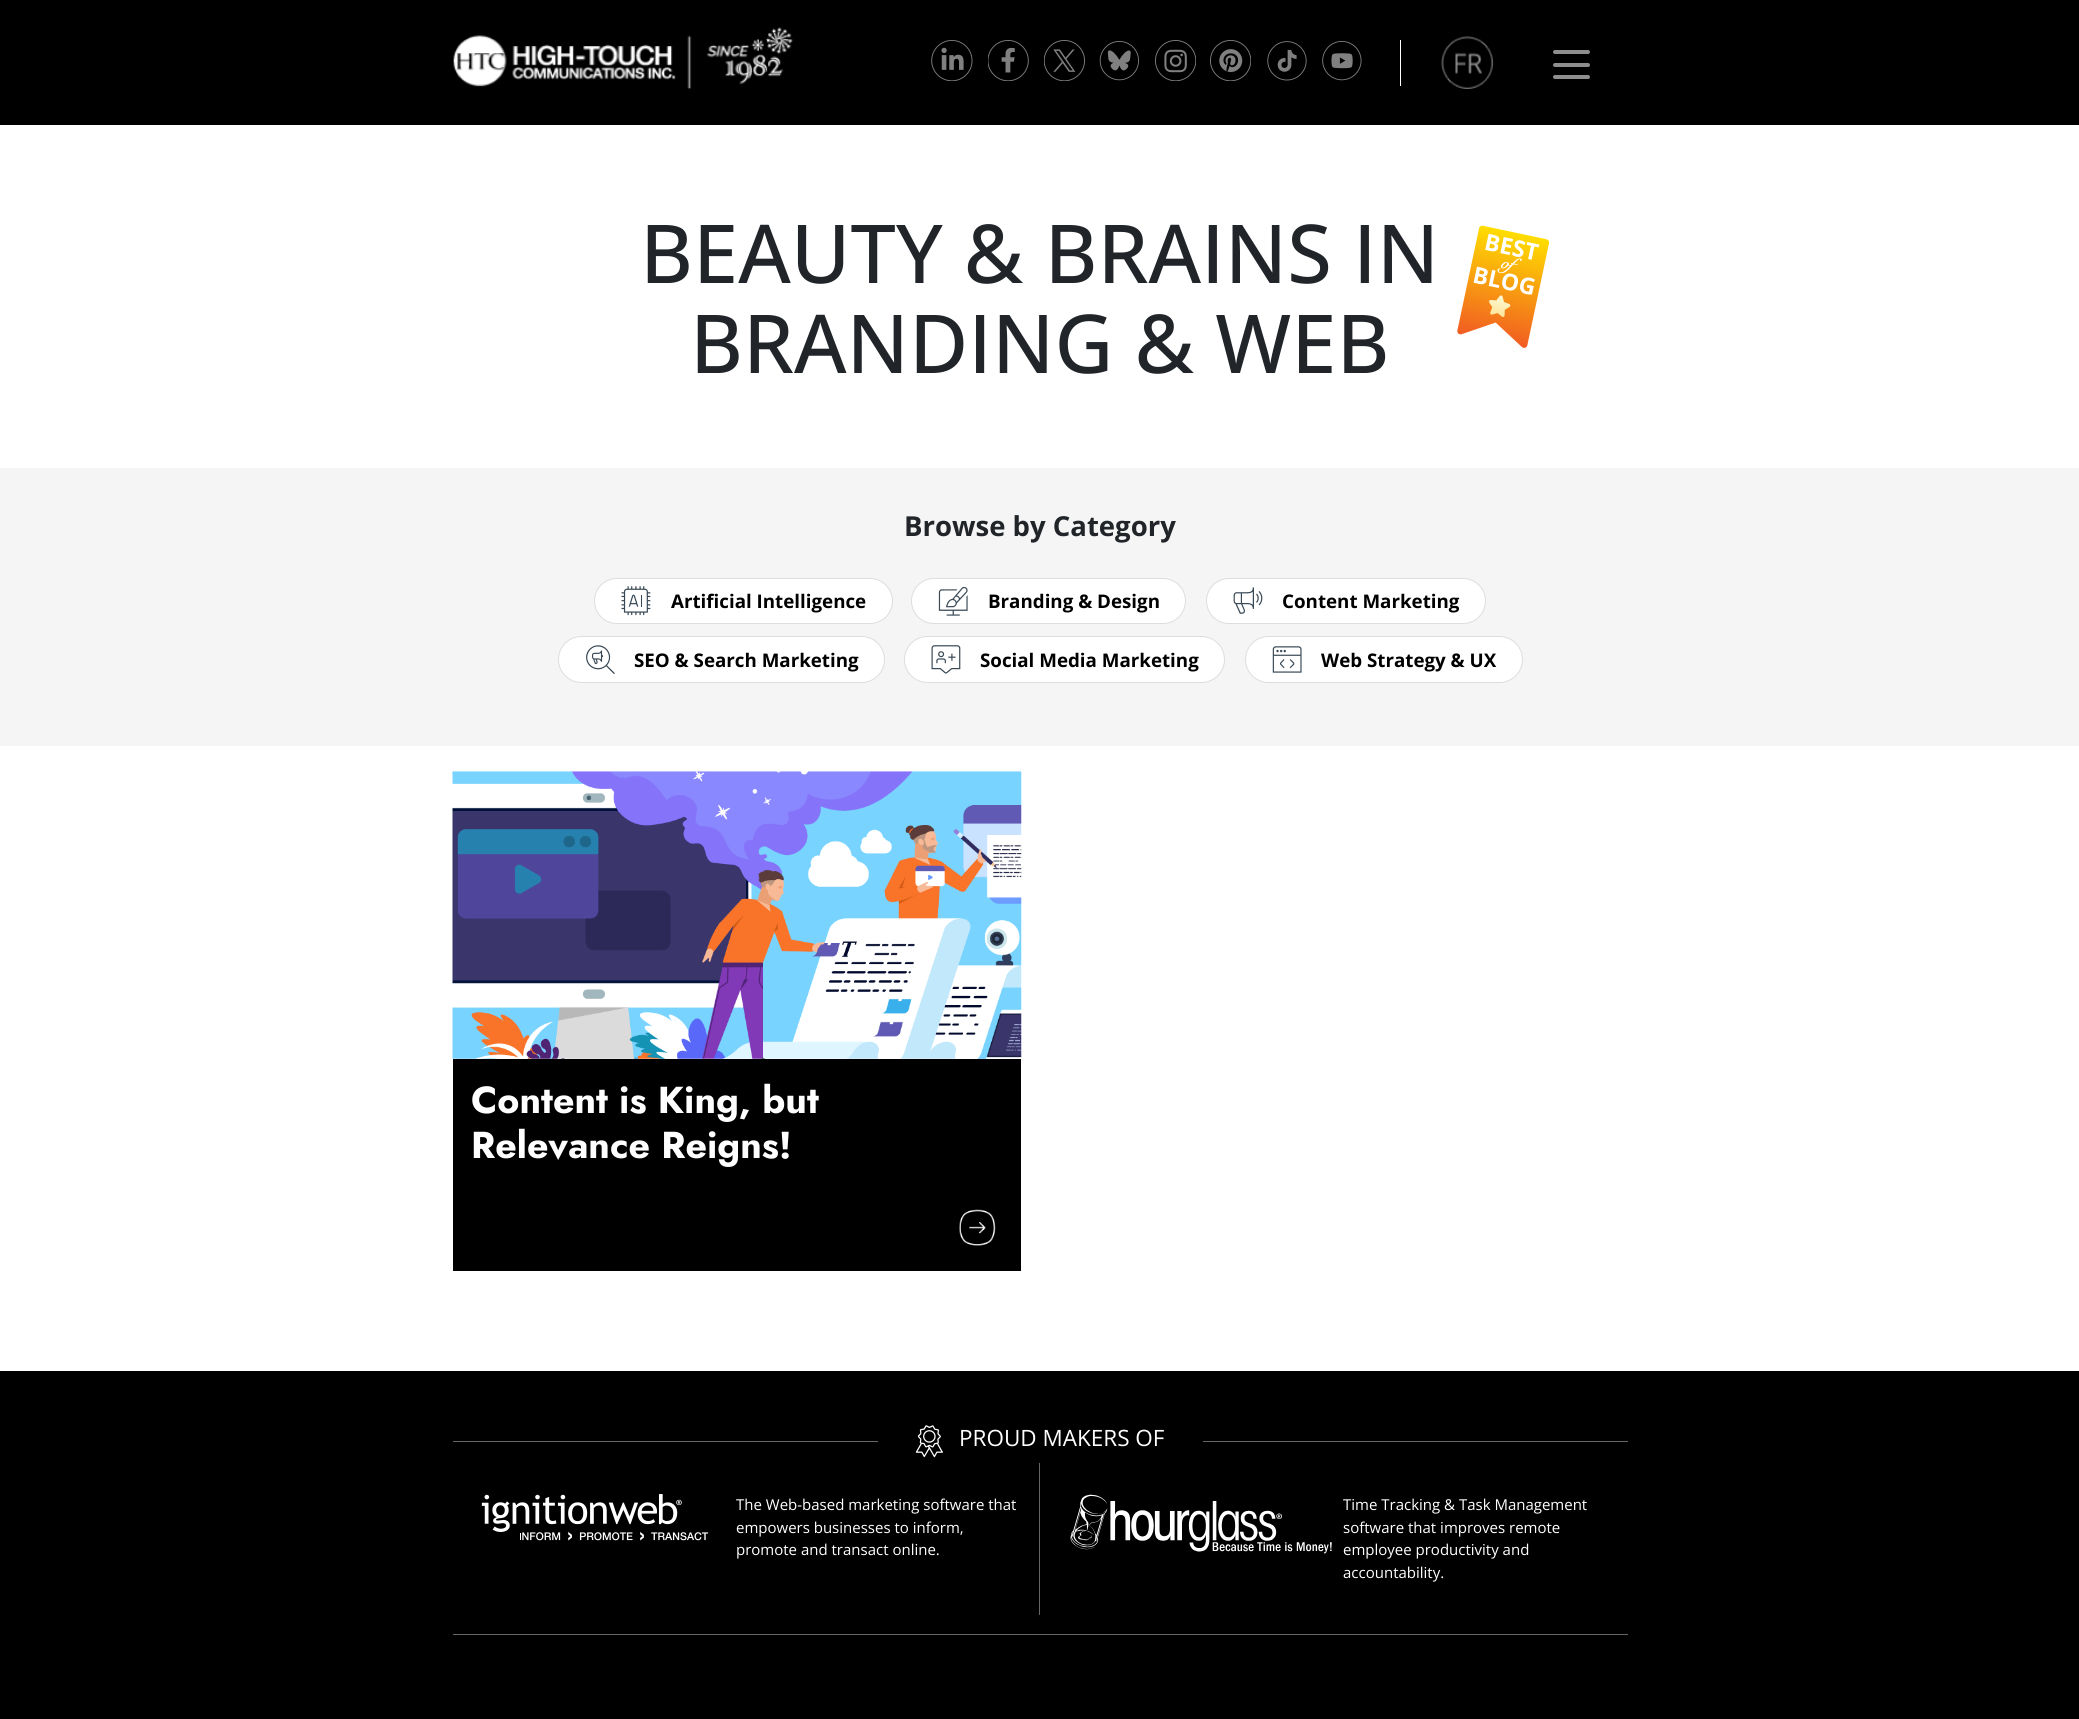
#include <cairo.h>
#include <math.h>
#include <stddef.h>

static cairo_t *ctx;

static void use_color(int r, int g, int b) {
    cairo_set_source_rgb(ctx, r / 255.0, g / 255.0, b / 255.0);
}

static void round_rect(double x, double y, double w, double h, double r) {
    cairo_new_sub_path(ctx);
    cairo_arc(ctx, x + w - r, y + h - r, r, 0, M_PI / 2);
    cairo_arc(ctx, x + r, y + h - r, r, M_PI / 2, M_PI);
    cairo_arc(ctx, x + r, y + r, r, M_PI, 1.5 * M_PI);
    cairo_arc(ctx, x + w - r, y + r, r, 1.5 * M_PI, 2 * M_PI);
    cairo_close_path(ctx);
}

static void picture(const char *path, double x, double y, double w, double h) {
    cairo_surface_t *image = cairo_image_surface_create_from_png(path);
    cairo_save(ctx);
    cairo_set_source_surface(ctx, image, x, y);
    cairo_rectangle(ctx, x, y, w, h);
    cairo_fill(ctx);
    cairo_restore(ctx);
    cairo_surface_destroy(image);
}

int main(void) {
    cairo_surface_t *surface = cairo_image_surface_create(CAIRO_FORMAT_RGB24, 2079, 1719);
    ctx = cairo_create(surface);
    cairo_font_options_t *options = cairo_font_options_create();
    cairo_font_options_set_hint_metrics(options, CAIRO_HINT_METRICS_OFF);
    cairo_font_options_set_hint_style(options, CAIRO_HINT_STYLE_NONE);
    cairo_set_font_options(ctx, options);
    cairo_set_miter_limit(ctx, 4);
    use_color(255, 255, 255);
    cairo_paint(ctx);
    use_color(0, 0, 0);
    cairo_rectangle(ctx, 0, 0, 2079, 125);
    cairo_fill(ctx);
    picture("img1.png", 453, 27, 340, 63);
    use_color(255, 255, 255);
    cairo_rectangle(ctx, 1400, 40, 1, 46);
    cairo_fill(ctx);
    picture("img2.png", 931, 40, 42, 41);
    picture("img3.png", 988, 40, 41, 41);
    picture("img4.png", 1044, 40, 41, 41);
    picture("img5.png", 1099, 41, 40, 40);
    picture("img6.png", 1155, 40, 41, 41);
    picture("img7.png", 1210, 40, 41, 41);
    picture("img8.png", 1267, 41, 40, 40);
    picture("img9.png", 1322, 41, 40, 40);
    picture("img10.png", 1441, 36, 53, 53);
    use_color(142, 142, 142);
    round_rect(1553, 50, 37, 4, 2);
    cairo_fill(ctx);
    round_rect(1553, 63, 37, 4, 2);
    cairo_fill(ctx);
    round_rect(1553, 75, 37, 4, 2);
    cairo_fill(ctx);
    cairo_select_font_face(ctx, "Open Sans Medium", CAIRO_FONT_SLANT_NORMAL, CAIRO_FONT_WEIGHT_NORMAL);
    cairo_set_font_size(ctx, 81.25);
    use_color(33, 37, 41);
    cairo_move_to(ctx, 640, 283);
    cairo_show_text(ctx, "BEAUTY & BRAINS IN");
    picture("img11.png", 1457, 225, 93, 123);
    cairo_move_to(ctx, 690, 373);
    cairo_show_text(ctx, "BRANDING & WEB");
    use_color(245, 245, 245);
    cairo_rectangle(ctx, 0, 468, 2079, 278);
    cairo_fill(ctx);
    cairo_select_font_face(ctx, "Open Sans", CAIRO_FONT_SLANT_NORMAL, CAIRO_FONT_WEIGHT_BOLD);
    cairo_set_font_size(ctx, 27.5);
    use_color(33, 37, 41);
    cairo_move_to(ctx, 904, 536);
    cairo_show_text(ctx, "Browse by Category");
    use_color(255, 255, 255);
    round_rect(594.5, 578.5, 298, 45, 22.5);
    cairo_fill_preserve(ctx);
    use_color(221, 221, 221);
    cairo_set_line_width(ctx, 1);
    cairo_stroke(ctx);
    picture("img12.png", 621, 586, 30, 30);
    cairo_set_font_size(ctx, 18.75);
    use_color(0, 0, 0);
    cairo_move_to(ctx, 671, 608);
    cairo_show_text(ctx, "Artificial Intelligence");
    use_color(255, 255, 255);
    round_rect(911.5, 578.5, 274, 45, 22.5);
    cairo_fill_preserve(ctx);
    use_color(221, 221, 221);
    cairo_stroke(ctx);
    picture("img13.png", 938, 586, 30, 30);
    use_color(0, 0, 0);
    cairo_move_to(ctx, 988, 608);
    cairo_show_text(ctx, "Branding & Design");
    use_color(255, 255, 255);
    round_rect(1206.5, 578.5, 279, 45, 22.5);
    cairo_fill_preserve(ctx);
    use_color(221, 221, 221);
    cairo_stroke(ctx);
    picture("img14.png", 1233, 587, 30, 27);
    use_color(0, 0, 0);
    cairo_move_to(ctx, 1282, 608);
    cairo_show_text(ctx, "Content Marketing");
    use_color(255, 255, 255);
    round_rect(558.5, 636.5, 326, 46, 23);
    cairo_fill_preserve(ctx);
    use_color(221, 221, 221);
    cairo_stroke(ctx);
    picture("img15.png", 586, 645, 29, 29);
    use_color(0, 0, 0);
    cairo_move_to(ctx, 634, 667);
    cairo_show_text(ctx, "SEO & Search Marketing");
    use_color(255, 255, 255);
    round_rect(904.5, 636.5, 320, 46, 23);
    cairo_fill_preserve(ctx);
    use_color(221, 221, 221);
    cairo_stroke(ctx);
    picture("img16.png", 931, 645, 30, 29);
    use_color(0, 0, 0);
    cairo_move_to(ctx, 980, 667);
    cairo_show_text(ctx, "Social Media Marketing");
    use_color(255, 255, 255);
    round_rect(1245.5, 636.5, 277, 46, 23);
    cairo_fill_preserve(ctx);
    use_color(221, 221, 221);
    cairo_stroke(ctx);
    picture("img17.png", 1272, 646, 30, 27);
    use_color(0, 0, 0);
    cairo_move_to(ctx, 1321, 667);
    cairo_show_text(ctx, "Web Strategy & UX");
    picture("img18.png", 452, 771, 570, 288);
    cairo_rectangle(ctx, 453, 1059, 568, 212);
    cairo_fill(ctx);
    cairo_select_font_face(ctx, "Jost", CAIRO_FONT_SLANT_NORMAL, CAIRO_FONT_WEIGHT_BOLD);
    cairo_set_font_size(ctx, 37.5);
    use_color(255, 255, 255);
    cairo_move_to(ctx, 471, 1113);
    cairo_show_text(ctx, "Content is King, but");
    cairo_move_to(ctx, 471, 1158);
    cairo_show_text(ctx, "Relevance Reigns!");
    picture("img19.png", 959, 1209, 37, 37);
    use_color(0, 0, 0);
    cairo_rectangle(ctx, 0, 1371, 2079, 348);
    cairo_fill(ctx);
    use_color(102, 102, 102);
    cairo_rectangle(ctx, 453, 1441, 425, 1);
    cairo_fill(ctx);
    picture("img20.png", 915, 1425, 28, 33);
    cairo_select_font_face(ctx, "Open Sans", CAIRO_FONT_SLANT_NORMAL, CAIRO_FONT_WEIGHT_NORMAL);
    cairo_set_font_size(ctx, 22.5);
    use_color(255, 255, 255);
    cairo_move_to(ctx, 959, 1446);
    cairo_show_text(ctx, "PROUD MAKERS OF");
    use_color(102, 102, 102);
    cairo_rectangle(ctx, 1203, 1441, 425, 1);
    cairo_fill(ctx);
    cairo_rectangle(ctx, 453, 1634, 1175, 1);
    cairo_fill(ctx);
    cairo_rectangle(ctx, 1039, 1463, 1, 152);
    cairo_fill(ctx);
    picture("img21.png", 481, 1494, 228, 47);
    cairo_set_font_size(ctx, 15);
    use_color(255, 255, 255);
    cairo_move_to(ctx, 736, 1510);
    cairo_show_text(ctx, "The Web-based marketing software that");
    cairo_move_to(ctx, 736, 1533);
    cairo_show_text(ctx, "empowers businesses to inform,");
    cairo_move_to(ctx, 736, 1555);
    cairo_show_text(ctx, "promote and transact online.");
    picture("img22.png", 1070, 1494, 262, 60);
    cairo_move_to(ctx, 1343, 1510);
    cairo_show_text(ctx, "Time Tracking & Task Management");
    cairo_move_to(ctx, 1343, 1533);
    cairo_show_text(ctx, "software that improves remote");
    cairo_move_to(ctx, 1343, 1555);
    cairo_show_text(ctx, "employee productivity and");
    cairo_move_to(ctx, 1343, 1578);
    cairo_show_text(ctx, "accountability.");
    cairo_surface_write_to_png(surface, "result.png");
    cairo_font_options_destroy(options);
    cairo_destroy(ctx);
    cairo_surface_destroy(surface);
    return 0;
}
